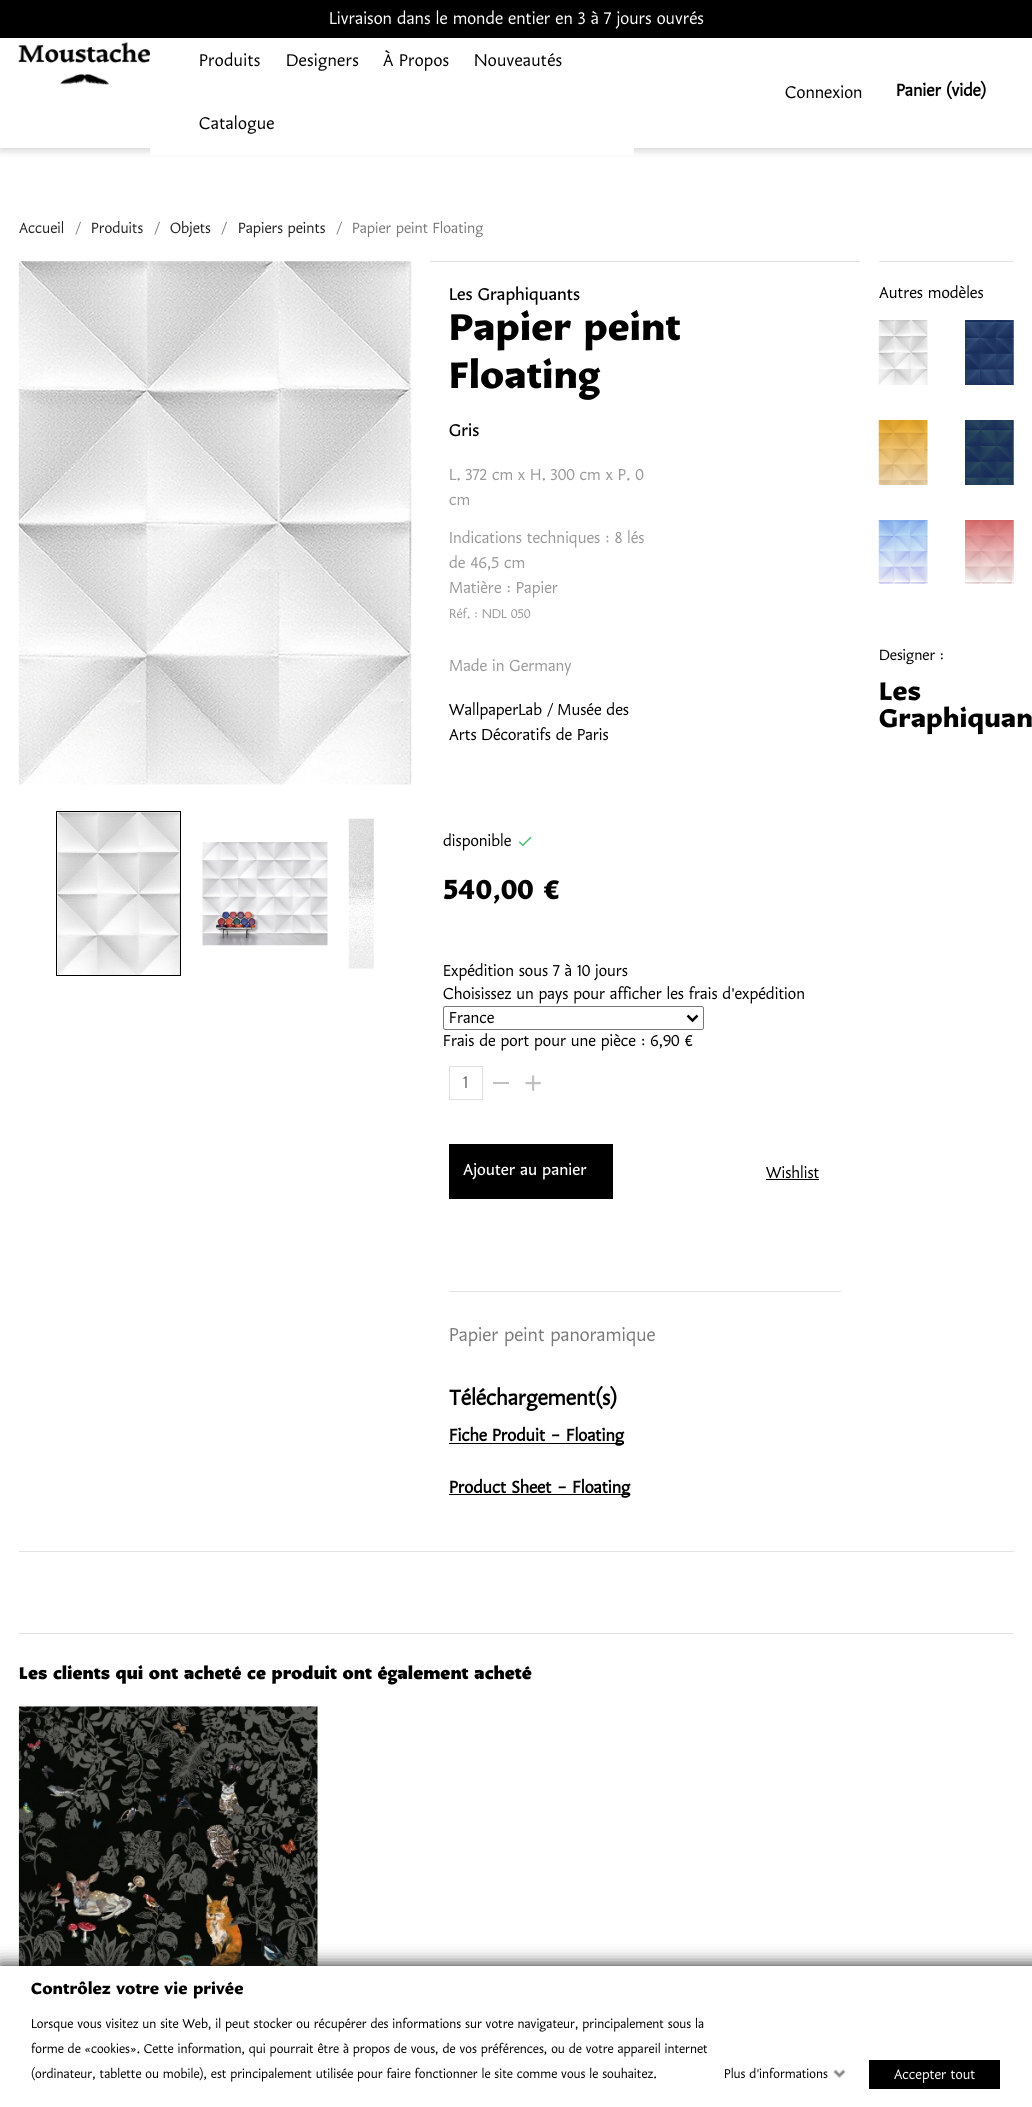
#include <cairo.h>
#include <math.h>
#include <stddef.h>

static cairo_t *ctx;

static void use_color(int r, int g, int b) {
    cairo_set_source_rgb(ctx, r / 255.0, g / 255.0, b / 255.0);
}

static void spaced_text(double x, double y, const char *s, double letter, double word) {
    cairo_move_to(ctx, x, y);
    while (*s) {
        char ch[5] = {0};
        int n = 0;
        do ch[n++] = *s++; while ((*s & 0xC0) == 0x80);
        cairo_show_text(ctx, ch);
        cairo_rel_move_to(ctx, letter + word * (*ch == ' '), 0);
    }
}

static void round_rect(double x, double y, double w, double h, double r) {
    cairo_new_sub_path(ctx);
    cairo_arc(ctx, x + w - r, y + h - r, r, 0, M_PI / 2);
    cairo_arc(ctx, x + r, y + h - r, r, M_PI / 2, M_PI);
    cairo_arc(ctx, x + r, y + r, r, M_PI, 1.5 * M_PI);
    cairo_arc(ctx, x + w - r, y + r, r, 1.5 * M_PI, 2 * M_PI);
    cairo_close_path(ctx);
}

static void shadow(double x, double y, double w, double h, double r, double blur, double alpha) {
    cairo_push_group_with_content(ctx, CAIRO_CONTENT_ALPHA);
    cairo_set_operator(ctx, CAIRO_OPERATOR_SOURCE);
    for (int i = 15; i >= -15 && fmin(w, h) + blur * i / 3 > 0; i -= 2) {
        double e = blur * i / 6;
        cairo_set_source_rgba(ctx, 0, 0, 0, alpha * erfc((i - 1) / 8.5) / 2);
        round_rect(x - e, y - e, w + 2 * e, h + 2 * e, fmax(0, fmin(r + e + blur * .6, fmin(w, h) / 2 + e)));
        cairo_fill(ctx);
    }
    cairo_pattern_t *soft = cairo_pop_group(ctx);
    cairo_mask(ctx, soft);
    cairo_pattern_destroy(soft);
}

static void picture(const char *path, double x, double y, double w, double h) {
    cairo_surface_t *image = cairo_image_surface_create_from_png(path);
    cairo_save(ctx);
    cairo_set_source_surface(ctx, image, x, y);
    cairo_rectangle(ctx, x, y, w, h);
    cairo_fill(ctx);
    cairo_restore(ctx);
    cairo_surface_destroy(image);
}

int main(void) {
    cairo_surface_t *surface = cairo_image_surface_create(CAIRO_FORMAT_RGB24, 1032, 2107);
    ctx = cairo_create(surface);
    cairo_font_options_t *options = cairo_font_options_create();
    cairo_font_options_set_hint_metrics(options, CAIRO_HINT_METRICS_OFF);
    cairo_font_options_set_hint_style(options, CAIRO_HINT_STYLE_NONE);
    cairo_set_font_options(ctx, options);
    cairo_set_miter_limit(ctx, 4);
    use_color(255, 255, 255);
    cairo_paint(ctx);
    use_color(0, 0, 0);
    shadow(0, 41, 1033, 110, 0, 4, 0.16);
    use_color(0, 0, 0);
    cairo_rectangle(ctx, 0, 0, 1032, 38);
    cairo_fill(ctx);
    cairo_select_font_face(ctx, "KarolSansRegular", CAIRO_FONT_SLANT_NORMAL, CAIRO_FONT_WEIGHT_NORMAL);
    cairo_set_font_size(ctx, 20);
    use_color(255, 255, 255);
    cairo_move_to(ctx, 329, 24);
    cairo_show_text(ctx, "Livraison dans le monde entier en 3 à 7 jours ouvrés");
    cairo_rectangle(ctx, 0, 38, 1032, 110);
    cairo_fill(ctx);
    picture("img1.png", 18, 42, 132, 43);
    cairo_rectangle(ctx, 150, 148, 484, 7);
    cairo_fill(ctx);
    use_color(0, 0, 0);
    spaced_text(199, 66, "Produits", 0.25, 0);
    spaced_text(286, 66, "Designers", 0.25, 0);
    spaced_text(383, 66, "À Propos", 0.25, 0);
    spaced_text(474, 66, "Nouveautés", 0.25, 0);
    spaced_text(199, 129, "Catalogue", 0.25, 0);
    cairo_move_to(ctx, 785, 98);
    cairo_show_text(ctx, "Connexion");
    cairo_select_font_face(ctx, "KarolSansRegular", CAIRO_FONT_SLANT_NORMAL, CAIRO_FONT_WEIGHT_BOLD);
    cairo_move_to(ctx, 896, 96);
    cairo_show_text(ctx, "Panier (vide)");
    cairo_select_font_face(ctx, "KarolSansRegular", CAIRO_FONT_SLANT_NORMAL, CAIRO_FONT_WEIGHT_NORMAL);
    cairo_set_font_size(ctx, 17.5);
    use_color(35, 35, 35);
    cairo_move_to(ctx, 19, 233);
    cairo_show_text(ctx, "Accueil");
    use_color(122, 122, 122);
    cairo_move_to(ctx, 75, 233);
    cairo_show_text(ctx, "/");
    use_color(35, 35, 35);
    cairo_move_to(ctx, 91, 233);
    cairo_show_text(ctx, "Produits");
    use_color(122, 122, 122);
    cairo_move_to(ctx, 154, 233);
    cairo_show_text(ctx, "/");
    use_color(35, 35, 35);
    cairo_move_to(ctx, 170, 233);
    cairo_show_text(ctx, "Objets");
    use_color(122, 122, 122);
    cairo_move_to(ctx, 221, 233);
    cairo_show_text(ctx, "/");
    use_color(35, 35, 35);
    cairo_move_to(ctx, 238, 233);
    cairo_show_text(ctx, "Papiers peints");
    use_color(122, 122, 122);
    cairo_move_to(ctx, 336, 233);
    cairo_show_text(ctx, "/");
    cairo_move_to(ctx, 352, 233);
    cairo_show_text(ctx, "Papier peint Floating");
    picture("img2.png", 18, 261, 394, 524);
    cairo_rectangle(ctx, 56.5, 811.5, 124, 164);
    use_color(0, 0, 0);
    cairo_set_line_width(ctx, 1);
    cairo_stroke(ctx);
    picture("img3.png", 57, 812, 123, 163);
    picture("img4.png", 202, 842, 126, 104);
    picture("img5.png", 348, 818, 26, 151);
    use_color(226, 226, 226);
    cairo_rectangle(ctx, 430, 261, 430, 1);
    cairo_fill(ctx);
    cairo_select_font_face(ctx, "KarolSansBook", CAIRO_FONT_SLANT_NORMAL, CAIRO_FONT_WEIGHT_NORMAL);
    cairo_set_font_size(ctx, 20);
    use_color(0, 0, 0);
    cairo_move_to(ctx, 449, 300);
    cairo_show_text(ctx, "Les Graphiquants");
    cairo_select_font_face(ctx, "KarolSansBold", CAIRO_FONT_SLANT_NORMAL, CAIRO_FONT_WEIGHT_BOLD);
    cairo_set_font_size(ctx, 43.75);
    cairo_move_to(ctx, 449, 340);
    cairo_show_text(ctx, "Papier peint");
    cairo_move_to(ctx, 449, 388);
    cairo_show_text(ctx, "Floating");
    cairo_select_font_face(ctx, "KarolSansBook", CAIRO_FONT_SLANT_NORMAL, CAIRO_FONT_WEIGHT_NORMAL);
    cairo_set_font_size(ctx, 20);
    cairo_move_to(ctx, 449, 436);
    cairo_show_text(ctx, "Gris");
    cairo_select_font_face(ctx, "KarolSansRegular", CAIRO_FONT_SLANT_NORMAL, CAIRO_FONT_WEIGHT_NORMAL);
    cairo_set_font_size(ctx, 18.75);
    use_color(153, 153, 153);
    cairo_move_to(ctx, 449, 480);
    cairo_show_text(ctx, "L. 372 cm x H. 300 cm x P. 0");
    cairo_move_to(ctx, 449, 505);
    cairo_show_text(ctx, "cm");
    cairo_move_to(ctx, 449, 543);
    cairo_show_text(ctx, "Indications techniques : 8 lés");
    cairo_move_to(ctx, 449, 568);
    cairo_show_text(ctx, "de 46,5 cm");
    cairo_move_to(ctx, 449, 593);
    cairo_show_text(ctx, "Matière : Papier");
    cairo_set_font_size(ctx, 15);
    cairo_move_to(ctx, 449, 618);
    cairo_show_text(ctx, "Réf. : NDL 050");
    cairo_set_font_size(ctx, 18.75);
    cairo_move_to(ctx, 449, 671);
    cairo_show_text(ctx, "Made in Germany");
    use_color(0, 0, 0);
    cairo_move_to(ctx, 449, 715);
    cairo_show_text(ctx, "WallpaperLab / Musée des");
    cairo_move_to(ctx, 449, 740);
    cairo_show_text(ctx, "Arts Décoratifs de Paris");
    cairo_move_to(ctx, 443, 846);
    cairo_show_text(ctx, "disponible");
    picture("img6.png", 518, 836, 14, 11);
    cairo_select_font_face(ctx, "KarolSansBold", CAIRO_FONT_SLANT_NORMAL, CAIRO_FONT_WEIGHT_BOLD);
    cairo_set_font_size(ctx, 32.5);
    cairo_move_to(ctx, 443, 899);
    cairo_show_text(ctx, "540,00 €");
    cairo_select_font_face(ctx, "KarolSansRegular", CAIRO_FONT_SLANT_NORMAL, CAIRO_FONT_WEIGHT_NORMAL);
    cairo_set_font_size(ctx, 18.75);
    cairo_move_to(ctx, 443, 976);
    cairo_show_text(ctx, "Expédition sous 7 à 10 jours");
    cairo_move_to(ctx, 443, 999);
    cairo_show_text(ctx, "Choisissez un pays pour afficher les frais d'expédition");
    round_rect(443.5, 1006.5, 260, 23, 2);
    use_color(118, 118, 118);
    cairo_stroke(ctx);
    cairo_new_path(ctx);
    cairo_move_to(ctx, 687.5, 1015.5);
    cairo_line_to(ctx, 692.5, 1020.5);
    cairo_line_to(ctx, 697.5, 1015.5);
    use_color(0, 0, 0);
    cairo_set_line_width(ctx, 2.5);
    cairo_stroke(ctx);
    cairo_move_to(ctx, 449, 1023);
    cairo_show_text(ctx, "France");
    cairo_move_to(ctx, 443, 1046);
    cairo_show_text(ctx, "Frais de port pour une pièce : 6,90 €");
    cairo_rectangle(ctx, 449.5, 1066.5, 33, 33);
    use_color(224, 224, 224);
    cairo_set_line_width(ctx, 1);
    cairo_stroke(ctx);
    cairo_set_font_size(ctx, 20);
    use_color(102, 102, 102);
    cairo_move_to(ctx, 463, 1088);
    cairo_show_text(ctx, "1");
    use_color(192, 192, 192);
    cairo_rectangle(ctx, 493, 1082, 16, 2);
    cairo_fill(ctx);
    picture("img7.png", 525, 1075, 16, 16);
    use_color(0, 0, 0);
    cairo_rectangle(ctx, 449, 1144, 164, 55);
    cairo_fill(ctx);
    cairo_select_font_face(ctx, "KarolSansBook", CAIRO_FONT_SLANT_NORMAL, CAIRO_FONT_WEIGHT_NORMAL);
    cairo_set_font_size(ctx, 18.75);
    use_color(255, 255, 255);
    cairo_move_to(ctx, 463, 1175);
    cairo_show_text(ctx, "Ajouter au panier");
    cairo_select_font_face(ctx, "KarolSansRegular", CAIRO_FONT_SLANT_NORMAL, CAIRO_FONT_WEIGHT_NORMAL);
    use_color(0, 0, 0);
    cairo_move_to(ctx, 766, 1178);
    cairo_show_text(ctx, "Wishlist");
    cairo_rectangle(ctx, 766, 1179, 53, 1);
    cairo_fill(ctx);
    use_color(226, 226, 226);
    cairo_rectangle(ctx, 449, 1291, 392, 1);
    cairo_fill(ctx);
    cairo_set_font_size(ctx, 22);
    use_color(122, 122, 122);
    cairo_move_to(ctx, 449, 1341);
    cairo_show_text(ctx, "Papier peint panoramique");
    cairo_select_font_face(ctx, "KarolSansRegular", CAIRO_FONT_SLANT_NORMAL, CAIRO_FONT_WEIGHT_BOLD);
    cairo_set_font_size(ctx, 25);
    use_color(0, 0, 0);
    cairo_move_to(ctx, 449, 1405);
    cairo_show_text(ctx, "Téléchargement(s)");
    cairo_rectangle(ctx, 449, 1443, 175, 1);
    cairo_fill(ctx);
    cairo_set_font_size(ctx, 20);
    cairo_move_to(ctx, 449, 1441);
    cairo_show_text(ctx, "Fiche Produit - Floating");
    cairo_rectangle(ctx, 449, 1494, 181, 1);
    cairo_fill(ctx);
    cairo_move_to(ctx, 449, 1493);
    cairo_show_text(ctx, "Product Sheet - Floating");
    use_color(226, 226, 226);
    cairo_rectangle(ctx, 879, 261, 135, 1);
    cairo_fill(ctx);
    cairo_select_font_face(ctx, "KarolSansRegular", CAIRO_FONT_SLANT_NORMAL, CAIRO_FONT_WEIGHT_NORMAL);
    cairo_set_font_size(ctx, 18.75);
    use_color(0, 0, 0);
    cairo_move_to(ctx, 879, 298);
    cairo_show_text(ctx, "Autres modèles");
    picture("img8.png", 878, 320, 50, 65);
    picture("img9.png", 965, 320, 49, 65);
    picture("img10.png", 878, 420, 50, 65);
    picture("img11.png", 965, 420, 49, 65);
    picture("img12.png", 878, 520, 50, 64);
    picture("img13.png", 965, 520, 49, 64);
    cairo_set_font_size(ctx, 17.5);
    cairo_move_to(ctx, 879, 660);
    cairo_show_text(ctx, "Designer :");
    cairo_select_font_face(ctx, "KarolSansBold", CAIRO_FONT_SLANT_NORMAL, CAIRO_FONT_WEIGHT_BOLD);
    cairo_set_font_size(ctx, 30);
    cairo_move_to(ctx, 879, 700);
    cairo_show_text(ctx, "Les");
    cairo_move_to(ctx, 879, 727);
    cairo_show_text(ctx, "Graphiquan");
    use_color(226, 226, 226);
    cairo_rectangle(ctx, 19, 1551, 995, 1);
    cairo_fill(ctx);
    cairo_rectangle(ctx, 19, 1633, 995, 1);
    cairo_fill(ctx);
    cairo_select_font_face(ctx, "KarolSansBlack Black", CAIRO_FONT_SLANT_NORMAL, CAIRO_FONT_WEIGHT_NORMAL);
    cairo_set_font_size(ctx, 20);
    use_color(0, 0, 0);
    cairo_move_to(ctx, 19, 1679);
    cairo_show_text(ctx, "Les clients qui ont acheté ce produit ont également acheté");
    picture("img14.png", 18, 1706, 300, 260);
    use_color(18, 18, 18);
    shadow(0, 1966, 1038, 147, 0, 9, 1);
    use_color(255, 255, 255);
    cairo_rectangle(ctx, 0, 1966, 1032, 141);
    cairo_fill(ctx);
    cairo_select_font_face(ctx, "KarolSansBold", CAIRO_FONT_SLANT_NORMAL, CAIRO_FONT_WEIGHT_BOLD);
    cairo_set_font_size(ctx, 18.75);
    use_color(0, 0, 0);
    cairo_move_to(ctx, 31, 1994);
    cairo_show_text(ctx, "Contrôlez votre vie privée");
    cairo_select_font_face(ctx, "KarolSansRegular", CAIRO_FONT_SLANT_NORMAL, CAIRO_FONT_WEIGHT_NORMAL);
    cairo_set_font_size(ctx, 15);
    cairo_move_to(ctx, 31, 2028);
    cairo_show_text(ctx, "Lorsque vous visitez un site Web, il peut stocker ou récupérer des informations sur votre navigateur, principalement sous la");
    cairo_move_to(ctx, 31, 2053);
    cairo_show_text(ctx, "forme de «cookies». Cette information, qui pourrait être à propos de vous, de vos préférences, ou de votre appareil internet");
    cairo_move_to(ctx, 31, 2078);
    cairo_show_text(ctx, "(ordinateur, tablette ou mobile), est principalement utilisée pour faire fonctionner le site comme vous le souhaitez.");
    cairo_move_to(ctx, 724, 2078);
    cairo_show_text(ctx, "Plus d'informations");
    picture("img15.png", 833, 2069, 13, 9);
    cairo_rectangle(ctx, 869, 2060, 131, 29);
    cairo_fill(ctx);
    cairo_set_font_size(ctx, 16.25);
    use_color(255, 255, 255);
    cairo_move_to(ctx, 894, 2079);
    cairo_show_text(ctx, "Accepter tout");
    cairo_surface_write_to_png(surface, "result.png");
    cairo_font_options_destroy(options);
    cairo_destroy(ctx);
    cairo_surface_destroy(surface);
    return 0;
}
